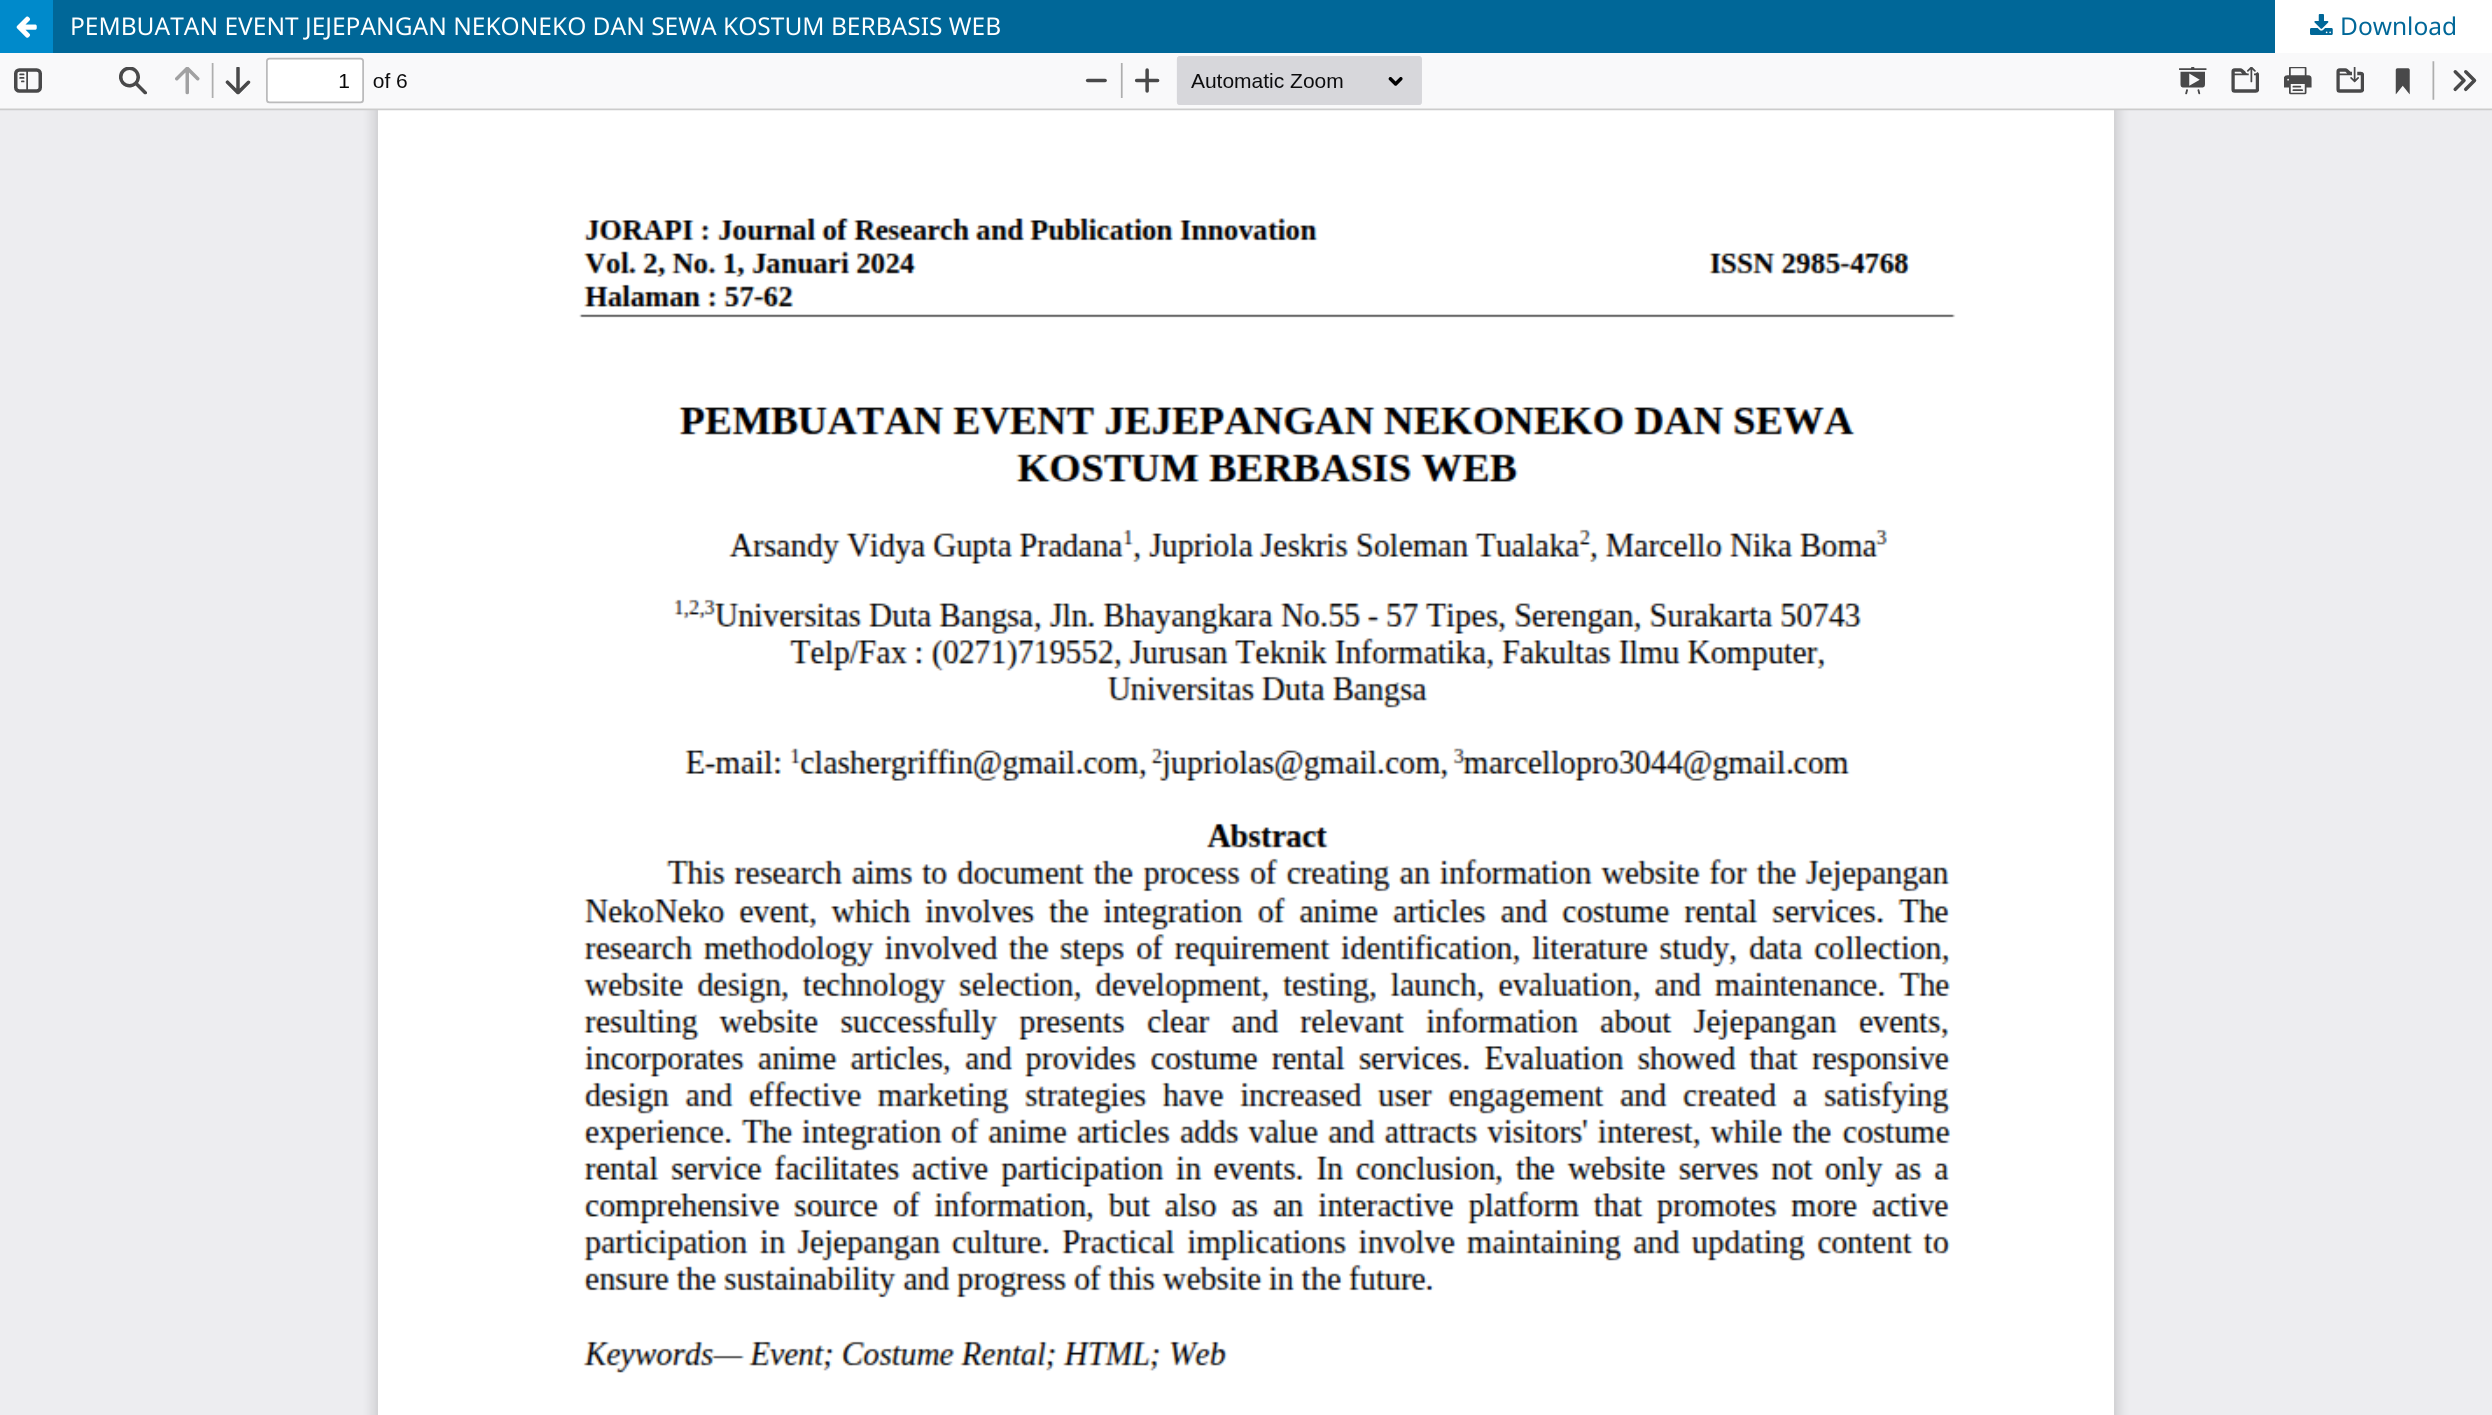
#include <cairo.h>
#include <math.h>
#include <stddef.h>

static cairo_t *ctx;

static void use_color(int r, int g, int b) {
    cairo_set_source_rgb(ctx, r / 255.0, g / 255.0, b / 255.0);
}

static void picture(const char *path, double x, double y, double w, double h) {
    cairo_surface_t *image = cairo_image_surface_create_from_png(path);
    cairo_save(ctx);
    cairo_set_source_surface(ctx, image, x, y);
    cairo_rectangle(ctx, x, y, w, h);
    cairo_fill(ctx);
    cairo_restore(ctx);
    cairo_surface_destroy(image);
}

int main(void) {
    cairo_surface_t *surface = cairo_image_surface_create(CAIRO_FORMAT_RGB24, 2492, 1415);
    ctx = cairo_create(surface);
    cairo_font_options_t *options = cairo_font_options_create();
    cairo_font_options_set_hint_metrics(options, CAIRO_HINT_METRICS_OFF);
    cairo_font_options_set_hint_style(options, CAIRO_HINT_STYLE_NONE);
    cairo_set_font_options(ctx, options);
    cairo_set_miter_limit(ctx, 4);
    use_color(255, 255, 255);
    cairo_paint(ctx);
    use_color(0, 103, 152);
    cairo_rectangle(ctx, 53, 0, 2222, 53);
    cairo_fill(ctx);
    use_color(0, 138, 203);
    cairo_rectangle(ctx, 0, 0, 53, 53);
    cairo_fill(ctx);
    picture("img1.png", 16, 16, 21, 22);
    cairo_select_font_face(ctx, "Noto Sans", CAIRO_FONT_SLANT_NORMAL, CAIRO_FONT_WEIGHT_NORMAL);
    cairo_set_font_size(ctx, 24.5);
    use_color(255, 255, 255);
    cairo_move_to(ctx, 70, 35);
    cairo_show_text(ctx, "PEMBUATAN EVENT JEJEPANGAN NEKONEKO DAN SEWA KOSTUM BERBASIS WEB");
    picture("img2.png", 2310, 14, 23, 21);
    use_color(0, 103, 152);
    cairo_move_to(ctx, 2340, 35);
    cairo_show_text(ctx, "Download");
    picture("img3.png", 0, 53, 2492, 1362);
    cairo_surface_write_to_png(surface, "result.png");
    cairo_font_options_destroy(options);
    cairo_destroy(ctx);
    cairo_surface_destroy(surface);
    return 0;
}
